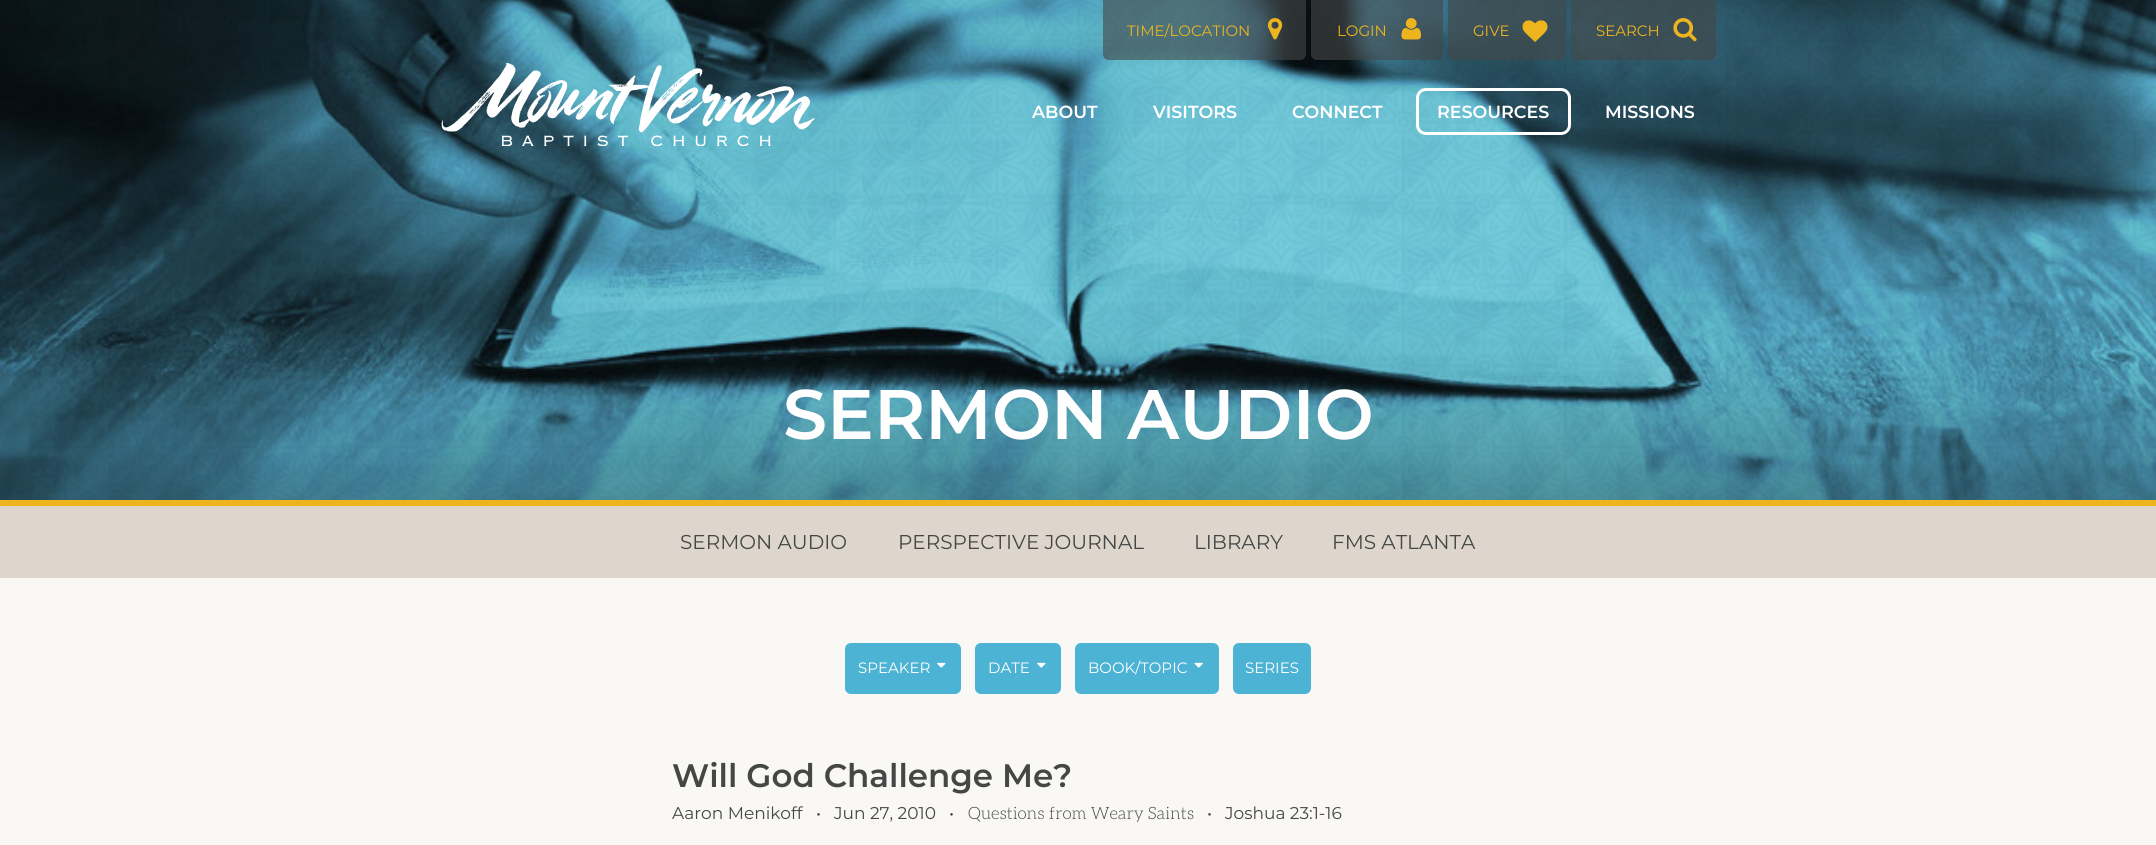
#include <cairo.h>
#include <math.h>
#include <stddef.h>

static cairo_t *ctx;

static void use_color(int r, int g, int b) {
    cairo_set_source_rgb(ctx, r / 255.0, g / 255.0, b / 255.0);
}

static void round_rect(double x, double y, double w, double h, double r) {
    cairo_new_sub_path(ctx);
    cairo_arc(ctx, x + w - r, y + h - r, r, 0, M_PI / 2);
    cairo_arc(ctx, x + r, y + h - r, r, M_PI / 2, M_PI);
    cairo_arc(ctx, x + r, y + r, r, M_PI, 1.5 * M_PI);
    cairo_arc(ctx, x + w - r, y + r, r, 1.5 * M_PI, 2 * M_PI);
    cairo_close_path(ctx);
}

static void picture(const char *path, double x, double y, double w, double h) {
    cairo_surface_t *image = cairo_image_surface_create_from_png(path);
    cairo_save(ctx);
    cairo_set_source_surface(ctx, image, x, y);
    cairo_rectangle(ctx, x, y, w, h);
    cairo_fill(ctx);
    cairo_restore(ctx);
    cairo_surface_destroy(image);
}

int main(void) {
    cairo_surface_t *surface = cairo_image_surface_create(CAIRO_FORMAT_RGB24, 2156, 845);
    ctx = cairo_create(surface);
    cairo_font_options_t *options = cairo_font_options_create();
    cairo_font_options_set_hint_metrics(options, CAIRO_HINT_METRICS_OFF);
    cairo_font_options_set_hint_style(options, CAIRO_HINT_STYLE_NONE);
    cairo_set_font_options(ctx, options);
    cairo_set_miter_limit(ctx, 4);
    use_color(249, 248, 244);
    cairo_paint(ctx);
    picture("img6.png", 0, 0, 2156, 500);
    picture("img7.png", 29, 0, 2127, 500);
    cairo_set_source_rgba(ctx, 0.271, 0.278, 0.275, 0.6);
    cairo_new_path(ctx);
    cairo_move_to(ctx, 1103, 0);
    cairo_line_to(ctx, 1306, 0);
    cairo_line_to(ctx, 1306, 54);
    cairo_curve_to(ctx, 1306, 57.5, 1303.5, 60, 1300, 60);
    cairo_line_to(ctx, 1109, 60);
    cairo_curve_to(ctx, 1105.5, 60, 1103, 57.5, 1103, 54);
    cairo_close_path(ctx);
    cairo_fill(ctx);
    cairo_select_font_face(ctx, "Montserrat", CAIRO_FONT_SLANT_NORMAL, CAIRO_FONT_WEIGHT_NORMAL);
    cairo_set_font_size(ctx, 15);
    use_color(238, 180, 30);
    cairo_move_to(ctx, 1127, 36);
    cairo_show_text(ctx, "TIME/LOCATION");
    picture("img1.png", 1267, 18, 16, 22);
    cairo_set_source_rgba(ctx, 0.271, 0.278, 0.275, 0.6);
    cairo_new_path(ctx);
    cairo_move_to(ctx, 1311, 0);
    cairo_line_to(ctx, 1443, 0);
    cairo_line_to(ctx, 1443, 54);
    cairo_curve_to(ctx, 1443, 57.5, 1440.5, 60, 1437, 60);
    cairo_line_to(ctx, 1317, 60);
    cairo_curve_to(ctx, 1313.5, 60, 1311, 57.5, 1311, 54);
    cairo_close_path(ctx);
    cairo_fill(ctx);
    use_color(238, 180, 30);
    cairo_move_to(ctx, 1337, 36);
    cairo_show_text(ctx, "LOGIN");
    picture("img2.png", 1401, 18, 21, 22);
    cairo_set_source_rgba(ctx, 0.271, 0.278, 0.275, 0.6);
    cairo_new_path(ctx);
    cairo_move_to(ctx, 1448, 0);
    cairo_line_to(ctx, 1566, 0);
    cairo_line_to(ctx, 1566, 54);
    cairo_curve_to(ctx, 1566, 57.5, 1563.5, 60, 1560, 60);
    cairo_line_to(ctx, 1454, 60);
    cairo_curve_to(ctx, 1450.5, 60, 1448, 57.5, 1448, 54);
    cairo_close_path(ctx);
    cairo_fill(ctx);
    use_color(238, 180, 30);
    cairo_move_to(ctx, 1473, 36);
    cairo_show_text(ctx, "GIVE");
    picture("img3.png", 1522, 20, 26, 22);
    cairo_set_source_rgba(ctx, 0.271, 0.278, 0.275, 0.6);
    cairo_new_path(ctx);
    cairo_move_to(ctx, 1571, 0);
    cairo_line_to(ctx, 1716, 0);
    cairo_line_to(ctx, 1716, 54);
    cairo_curve_to(ctx, 1716, 57.5, 1713.5, 60, 1710, 60);
    cairo_line_to(ctx, 1577, 60);
    cairo_curve_to(ctx, 1573.5, 60, 1571, 57.5, 1571, 54);
    cairo_close_path(ctx);
    cairo_fill(ctx);
    use_color(238, 180, 30);
    cairo_move_to(ctx, 1596, 36);
    cairo_show_text(ctx, "SEARCH");
    picture("img4.png", 1673, 18, 24, 24);
    picture("img5.png", 441, 63, 374, 83);
    cairo_select_font_face(ctx, "Montserrat SemiBold", CAIRO_FONT_SLANT_NORMAL, CAIRO_FONT_WEIGHT_NORMAL);
    cairo_set_font_size(ctx, 17.5);
    use_color(255, 255, 255);
    cairo_move_to(ctx, 1032, 118);
    cairo_show_text(ctx, "ABOUT");
    cairo_move_to(ctx, 1153, 118);
    cairo_show_text(ctx, "VISITORS");
    cairo_move_to(ctx, 1292, 118);
    cairo_show_text(ctx, "CONNECT");
    round_rect(1417.5, 89.5, 152, 44, 8.5);
    cairo_set_line_width(ctx, 3);
    cairo_stroke(ctx);
    cairo_move_to(ctx, 1437, 118);
    cairo_show_text(ctx, "RESOURCES");
    cairo_move_to(ctx, 1605, 118);
    cairo_show_text(ctx, "MISSIONS");
    use_color(238, 180, 30);
    cairo_rectangle(ctx, 0, 500, 2156, 6);
    cairo_fill(ctx);
    cairo_set_font_size(ctx, 70);
    use_color(255, 255, 255);
    cairo_move_to(ctx, 783, 439);
    cairo_show_text(ctx, "SERMON AUDIO");
    use_color(222, 214, 205);
    cairo_rectangle(ctx, 0, 506, 2156, 72);
    cairo_fill(ctx);
    cairo_select_font_face(ctx, "Montserrat", CAIRO_FONT_SLANT_NORMAL, CAIRO_FONT_WEIGHT_NORMAL);
    cairo_set_font_size(ctx, 20);
    use_color(69, 71, 70);
    cairo_move_to(ctx, 680, 549);
    cairo_show_text(ctx, "SERMON AUDIO");
    cairo_move_to(ctx, 898, 549);
    cairo_show_text(ctx, "PERSPECTIVE JOURNAL");
    cairo_move_to(ctx, 1194, 549);
    cairo_show_text(ctx, "LIBRARY");
    cairo_move_to(ctx, 1332, 549);
    cairo_show_text(ctx, "FMS ATLANTA");
    use_color(76, 179, 212);
    round_rect(845, 643, 116, 51, 6);
    cairo_fill(ctx);
    cairo_set_font_size(ctx, 15);
    use_color(255, 255, 255);
    cairo_move_to(ctx, 858, 673);
    cairo_show_text(ctx, "SPEAKER");
    picture("img8.png", 937, 662, 9, 6);
    use_color(76, 179, 212);
    round_rect(975, 643, 86, 51, 6);
    cairo_fill(ctx);
    use_color(255, 255, 255);
    cairo_move_to(ctx, 988, 673);
    cairo_show_text(ctx, "DATE");
    picture("img8.png", 1037, 662, 9, 6);
    use_color(76, 179, 212);
    round_rect(1075, 643, 144, 51, 6);
    cairo_fill(ctx);
    use_color(255, 255, 255);
    cairo_move_to(ctx, 1088, 673);
    cairo_show_text(ctx, "BOOK/TOPIC");
    picture("img9.png", 1194, 662, 9, 6);
    use_color(76, 179, 212);
    round_rect(1233, 643, 78, 51, 6);
    cairo_fill(ctx);
    use_color(255, 255, 255);
    cairo_move_to(ctx, 1245, 673);
    cairo_show_text(ctx, "SERIES");
    cairo_select_font_face(ctx, "Montserrat SemiBold", CAIRO_FONT_SLANT_NORMAL, CAIRO_FONT_WEIGHT_NORMAL);
    cairo_set_font_size(ctx, 32.5);
    use_color(69, 71, 70);
    cairo_move_to(ctx, 672, 787);
    cairo_show_text(ctx, "Will God Challenge Me?");
    cairo_select_font_face(ctx, "Montserrat", CAIRO_FONT_SLANT_NORMAL, CAIRO_FONT_WEIGHT_NORMAL);
    cairo_set_font_size(ctx, 17);
    cairo_move_to(ctx, 672, 819);
    cairo_show_text(ctx, "Aaron Menikoff");
    cairo_move_to(ctx, 816, 819);
    cairo_show_text(ctx, "•");
    cairo_move_to(ctx, 834, 819);
    cairo_show_text(ctx, "Jun 27, 2010");
    cairo_move_to(ctx, 949, 819);
    cairo_show_text(ctx, "•");
    cairo_select_font_face(ctx, "Aleo Light", CAIRO_FONT_SLANT_NORMAL, CAIRO_FONT_WEIGHT_NORMAL);
    cairo_move_to(ctx, 968, 819);
    cairo_show_text(ctx, "Questions from Weary Saints");
    cairo_select_font_face(ctx, "Montserrat", CAIRO_FONT_SLANT_NORMAL, CAIRO_FONT_WEIGHT_NORMAL);
    cairo_move_to(ctx, 1207, 819);
    cairo_show_text(ctx, "•");
    cairo_move_to(ctx, 1225, 819);
    cairo_show_text(ctx, "Joshua 23:1-16");
    cairo_surface_write_to_png(surface, "result.png");
    cairo_font_options_destroy(options);
    cairo_destroy(ctx);
    cairo_surface_destroy(surface);
    return 0;
}
